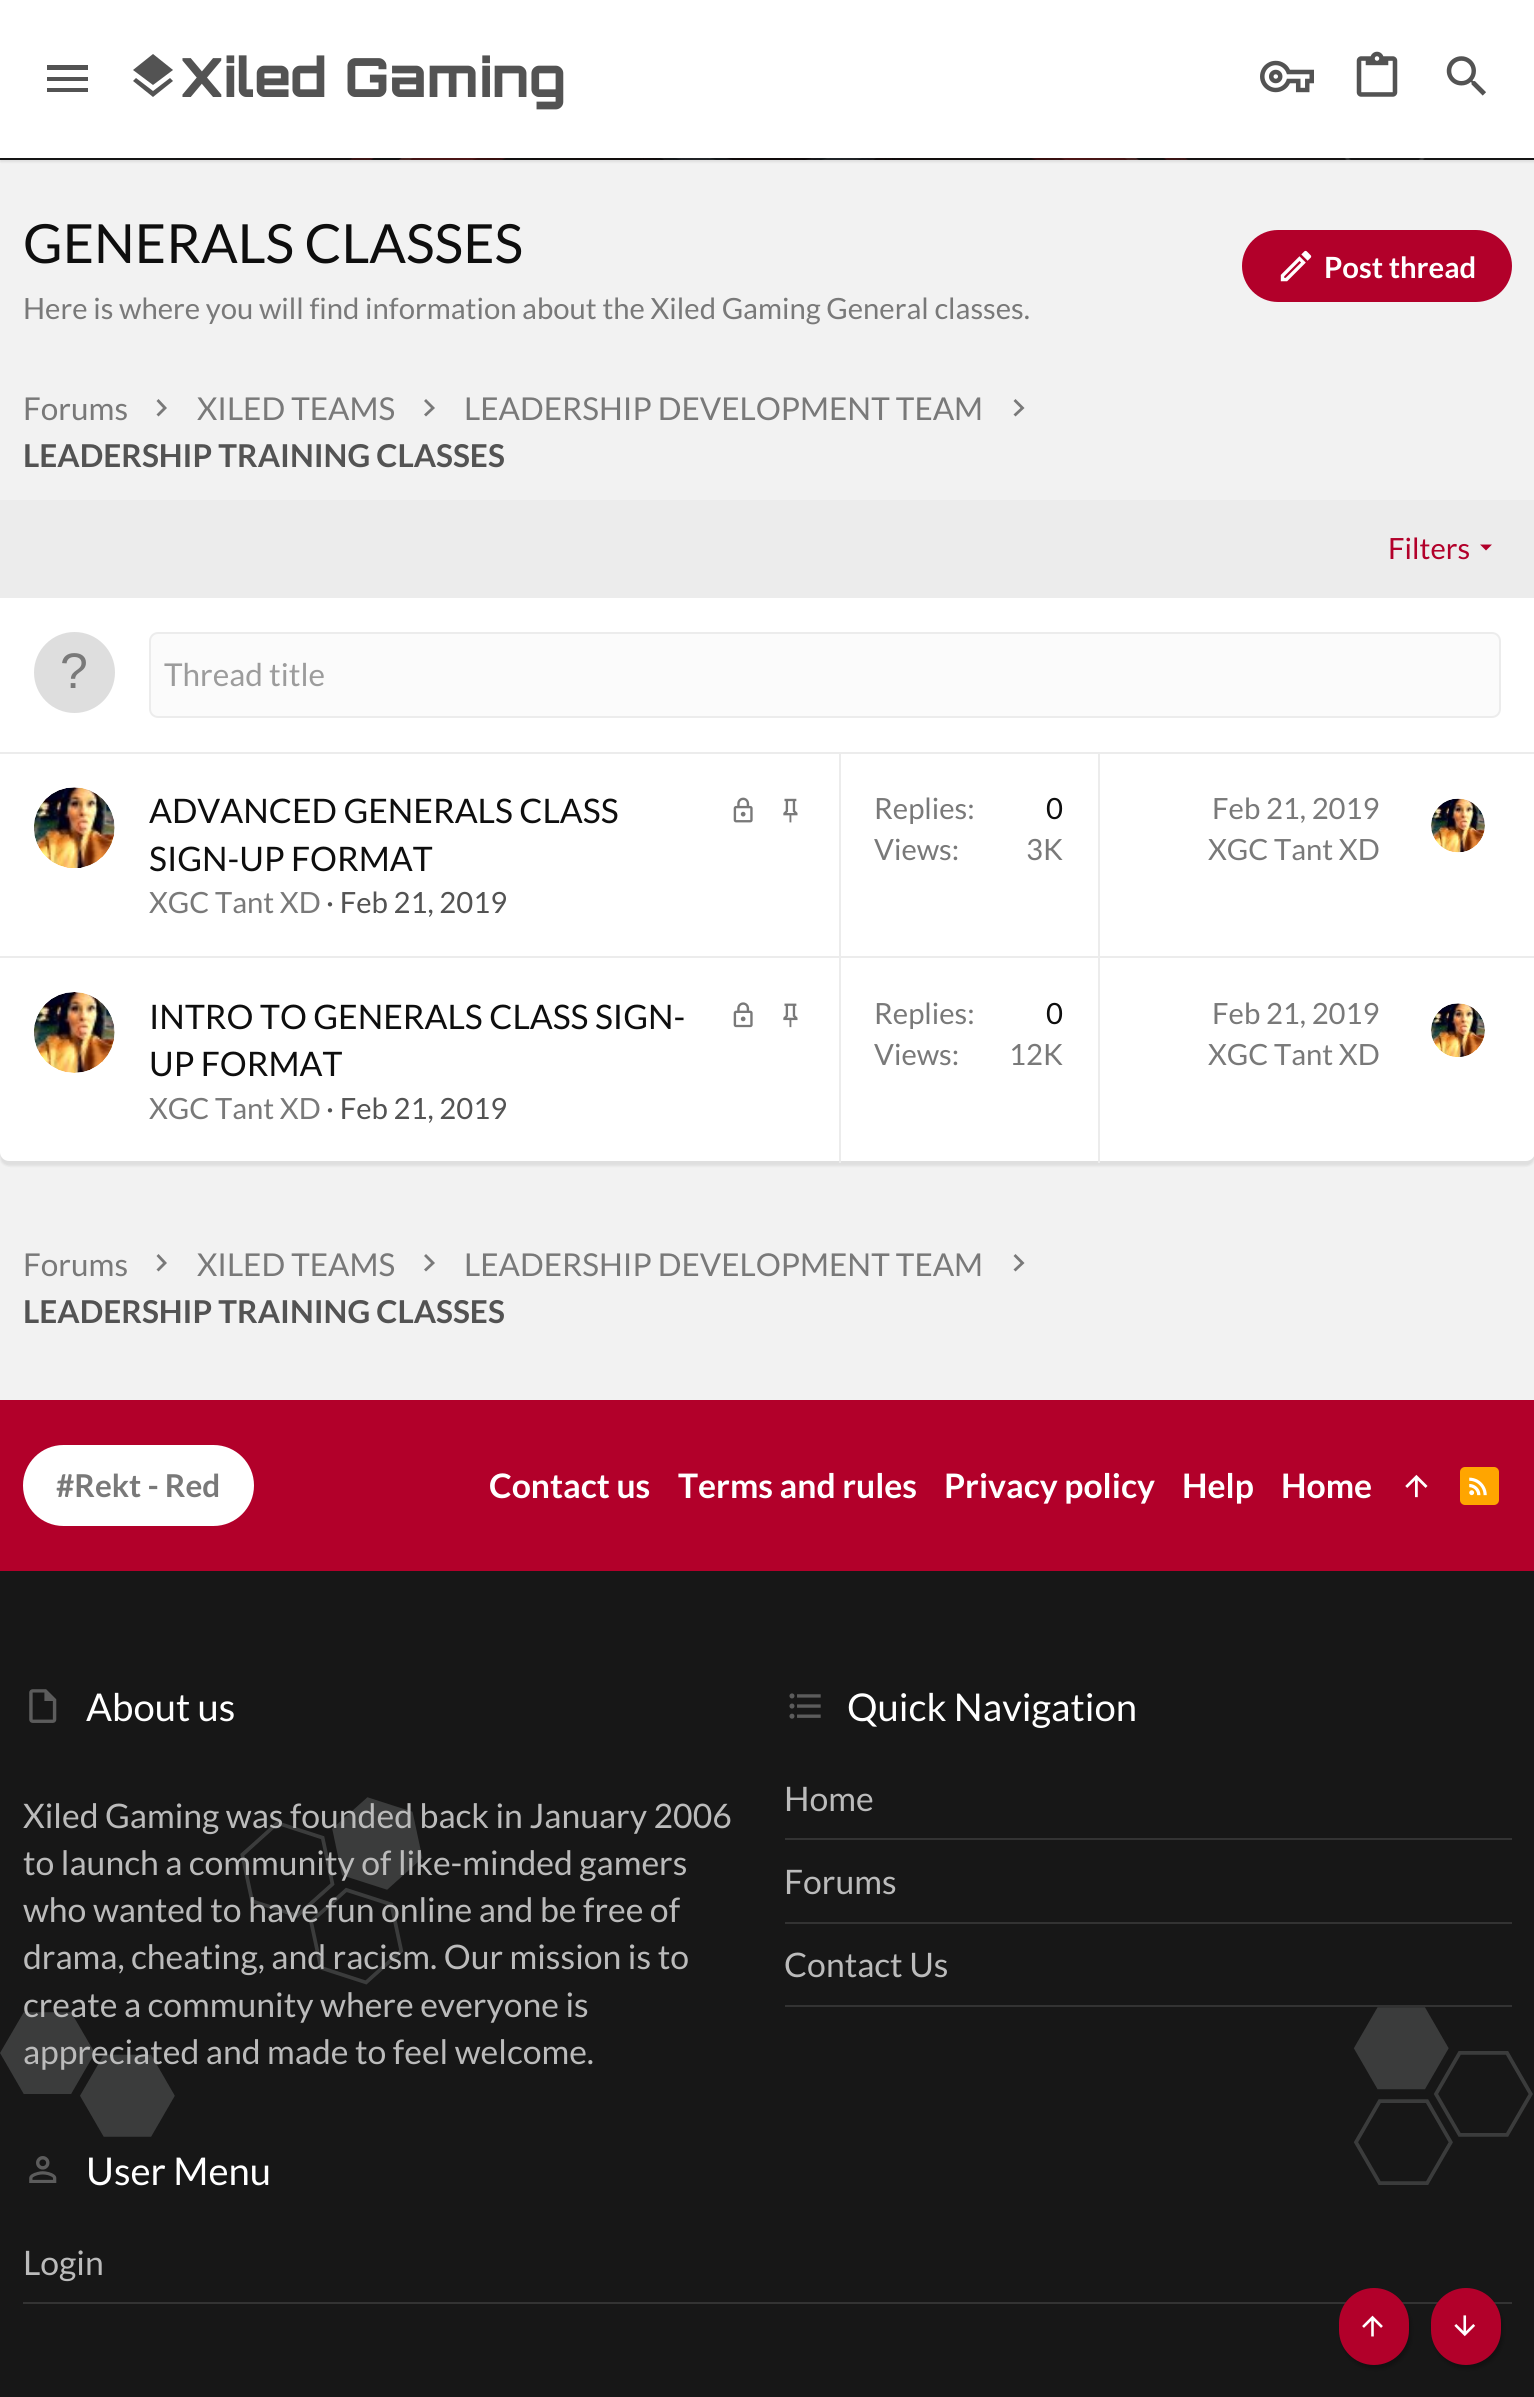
#include <cairo.h>
#include <math.h>
#include <stddef.h>

static cairo_t *ctx;

static void use_color(int r, int g, int b) {
    cairo_set_source_rgb(ctx, r / 255.0, g / 255.0, b / 255.0);
}

static void round_rect(double x, double y, double w, double h, double r) {
    cairo_new_sub_path(ctx);
    cairo_arc(ctx, x + w - r, y + h - r, r, 0, M_PI / 2);
    cairo_arc(ctx, x + r, y + h - r, r, M_PI / 2, M_PI);
    cairo_arc(ctx, x + r, y + r, r, M_PI, 1.5 * M_PI);
    cairo_arc(ctx, x + w - r, y + r, r, 1.5 * M_PI, 2 * M_PI);
    cairo_close_path(ctx);
}

static void shadow(double x, double y, double w, double h, double r, double blur, double alpha) {
    cairo_push_group_with_content(ctx, CAIRO_CONTENT_ALPHA);
    cairo_set_operator(ctx, CAIRO_OPERATOR_SOURCE);
    for (int i = 15; i >= -15 && fmin(w, h) + blur * i / 3 > 0; i -= 2) {
        double e = blur * i / 6;
        cairo_set_source_rgba(ctx, 0, 0, 0, alpha * erfc((i - 1) / 8.5) / 2);
        round_rect(x - e, y - e, w + 2 * e, h + 2 * e, fmax(0, fmin(r + e + blur * .6, fmin(w, h) / 2 + e)));
        cairo_fill(ctx);
    }
    cairo_pattern_t *soft = cairo_pop_group(ctx);
    cairo_mask(ctx, soft);
    cairo_pattern_destroy(soft);
}

static void picture(const char *path, double x, double y, double w, double h) {
    cairo_surface_t *image = cairo_image_surface_create_from_png(path);
    cairo_save(ctx);
    cairo_set_source_surface(ctx, image, x, y);
    cairo_rectangle(ctx, x, y, w, h);
    cairo_fill(ctx);
    cairo_restore(ctx);
    cairo_surface_destroy(image);
}

int main(void) {
    cairo_surface_t *surface = cairo_image_surface_create(CAIRO_FORMAT_RGB24, 1534, 2397);
    ctx = cairo_create(surface);
    cairo_font_options_t *options = cairo_font_options_create();
    cairo_font_options_set_hint_metrics(options, CAIRO_HINT_METRICS_OFF);
    cairo_font_options_set_hint_style(options, CAIRO_HINT_STYLE_NONE);
    cairo_set_font_options(ctx, options);
    cairo_set_miter_limit(ctx, 4);
    use_color(242, 242, 242);
    cairo_paint(ctx);
    picture("img21.png", 0, 158, 1534, 2);
    picture("img22.png", 1344, 158, 81, 2);
    use_color(0, 0, 0);
    shadow(0, 5, 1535, 157, 0, 1, 0.08);
    use_color(255, 255, 255);
    cairo_rectangle(ctx, 0, 0, 1534, 158);
    cairo_fill(ctx);
    use_color(83, 83, 83);
    cairo_new_path(ctx);
    cairo_move_to(ctx, 47, 65);
    cairo_line_to(ctx, 88, 65);
    cairo_line_to(ctx, 88, 70);
    cairo_line_to(ctx, 47, 70);
    cairo_close_path(ctx);
    cairo_move_to(ctx, 47, 77);
    cairo_line_to(ctx, 88, 77);
    cairo_line_to(ctx, 88, 81);
    cairo_line_to(ctx, 47, 81);
    cairo_close_path(ctx);
    cairo_move_to(ctx, 47, 88);
    cairo_line_to(ctx, 88, 88);
    cairo_line_to(ctx, 88, 92);
    cairo_line_to(ctx, 47, 92);
    cairo_close_path(ctx);
    cairo_fill(ctx);
    cairo_new_path(ctx);
    cairo_move_to(ctx, 153, 85);
    cairo_line_to(ctx, 173, 70);
    cairo_line_to(ctx, 153, 54);
    cairo_line_to(ctx, 133, 70);
    cairo_close_path(ctx);
    cairo_move_to(ctx, 153, 91);
    cairo_line_to(ctx, 136, 78);
    cairo_line_to(ctx, 133, 81);
    cairo_line_to(ctx, 153, 97);
    cairo_line_to(ctx, 173, 81);
    cairo_line_to(ctx, 170, 78);
    cairo_close_path(ctx);
    cairo_fill(ctx);
    cairo_select_font_face(ctx, "Orbitron ExtraBold", CAIRO_FONT_SLANT_NORMAL, CAIRO_FONT_WEIGHT_NORMAL);
    cairo_set_font_size(ctx, 54);
    cairo_move_to(ctx, 180, 97);
    cairo_show_text(ctx, "Xiled Gaming");
    picture("img1.png", 1260, 60, 54, 33);
    picture("img2.png", 1356, 51, 42, 46);
    picture("img3.png", 1446, 56, 40, 40);
    cairo_select_font_face(ctx, "Lato", CAIRO_FONT_SLANT_NORMAL, CAIRO_FONT_WEIGHT_NORMAL);
    use_color(14, 14, 14);
    cairo_move_to(ctx, 23, 263);
    cairo_show_text(ctx, "GENERALS CLASSES");
    cairo_set_font_size(ctx, 29.25);
    use_color(121, 121, 121);
    cairo_move_to(ctx, 23, 319);
    cairo_show_text(ctx, "Here is where you will find information about the Xiled Gaming General classes.");
    use_color(178, 0, 42);
    round_rect(1242, 230, 270, 72, 36);
    cairo_fill(ctx);
    picture("img4.png", 1280, 250, 32, 32);
    cairo_select_font_face(ctx, "Lato", CAIRO_FONT_SLANT_NORMAL, CAIRO_FONT_WEIGHT_BOLD);
    use_color(255, 255, 255);
    cairo_move_to(ctx, 1324, 278);
    cairo_show_text(ctx, "Post thread");
    cairo_select_font_face(ctx, "Lato", CAIRO_FONT_SLANT_NORMAL, CAIRO_FONT_WEIGHT_NORMAL);
    cairo_set_font_size(ctx, 31.5);
    use_color(121, 121, 121);
    cairo_move_to(ctx, 23, 420);
    cairo_show_text(ctx, "Forums");
    cairo_new_path(ctx);
    cairo_move_to(ctx, 156.5, 414.5);
    cairo_line_to(ctx, 163, 408);
    cairo_line_to(ctx, 156.5, 401);
    cairo_line_to(ctx, 158.5, 399);
    cairo_line_to(ctx, 167, 408);
    cairo_line_to(ctx, 158.5, 416.5);
    cairo_close_path(ctx);
    cairo_fill(ctx);
    cairo_move_to(ctx, 197, 420);
    cairo_show_text(ctx, "XILED TEAMS");
    cairo_new_path(ctx);
    cairo_move_to(ctx, 424, 414.5);
    cairo_line_to(ctx, 431, 408);
    cairo_line_to(ctx, 424, 401);
    cairo_line_to(ctx, 426, 399);
    cairo_line_to(ctx, 435, 408);
    cairo_line_to(ctx, 426, 416.5);
    cairo_close_path(ctx);
    cairo_fill(ctx);
    cairo_move_to(ctx, 464, 420);
    cairo_show_text(ctx, "LEADERSHIP DEVELOPMENT TEAM");
    cairo_new_path(ctx);
    cairo_move_to(ctx, 1013.5, 414.5);
    cairo_line_to(ctx, 1020.5, 408);
    cairo_line_to(ctx, 1013.5, 401);
    cairo_line_to(ctx, 1015.5, 399);
    cairo_line_to(ctx, 1024.5, 408);
    cairo_line_to(ctx, 1015.5, 416.5);
    cairo_close_path(ctx);
    cairo_fill(ctx);
    cairo_select_font_face(ctx, "Lato", CAIRO_FONT_SLANT_NORMAL, CAIRO_FONT_WEIGHT_BOLD);
    use_color(83, 83, 83);
    cairo_move_to(ctx, 23, 467);
    cairo_show_text(ctx, "LEADERSHIP TRAINING CLASSES");
    use_color(0, 0, 0);
    shadow(0, 504, 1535, 662, 9, 1, 0.08);
    use_color(255, 255, 255);
    round_rect(0, 500, 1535, 661, 9);
    cairo_fill(ctx);
    use_color(236, 236, 236);
    cairo_rectangle(ctx, 0, 500, 1534, 98);
    cairo_fill(ctx);
    cairo_select_font_face(ctx, "Lato", CAIRO_FONT_SLANT_NORMAL, CAIRO_FONT_WEIGHT_NORMAL);
    cairo_set_font_size(ctx, 29.25);
    use_color(178, 0, 42);
    cairo_move_to(ctx, 1388, 559);
    cairo_show_text(ctx, "Filters");
    cairo_new_path(ctx);
    cairo_move_to(ctx, 1480, 544.5);
    cairo_line_to(ctx, 1486, 550.5);
    cairo_line_to(ctx, 1492, 544.5);
    cairo_close_path(ctx);
    cairo_fill(ctx);
    use_color(222, 222, 222);
    cairo_arc(ctx, 74.5, 672.5, 40.5, 0, 2 * M_PI);
    cairo_fill(ctx);
    cairo_select_font_face(ctx, "Liberation Sans", CAIRO_FONT_SLANT_NORMAL, CAIRO_FONT_WEIGHT_NORMAL);
    cairo_set_font_size(ctx, 50);
    use_color(121, 121, 121);
    cairo_move_to(ctx, 60, 688);
    cairo_show_text(ctx, "?");
    use_color(251, 251, 251);
    round_rect(150, 633, 1350, 84, 8);
    cairo_fill_preserve(ctx);
    use_color(236, 236, 236);
    cairo_stroke(ctx);
    cairo_select_font_face(ctx, "Lato", CAIRO_FONT_SLANT_NORMAL, CAIRO_FONT_WEIGHT_NORMAL);
    cairo_set_font_size(ctx, 31.5);
    use_color(156, 156, 156);
    cairo_move_to(ctx, 164, 686);
    cairo_show_text(ctx, "Thread title");
    use_color(236, 236, 236);
    cairo_rectangle(ctx, 0, 752, 1534, 2);
    cairo_fill(ctx);
    picture("img5.png", 34, 787, 81, 81);
    cairo_set_font_size(ctx, 33.75);
    use_color(14, 14, 14);
    cairo_move_to(ctx, 149, 823);
    cairo_show_text(ctx, "ADVANCED GENERALS CLASS");
    cairo_move_to(ctx, 149, 871);
    cairo_show_text(ctx, "SIGN-UP FORMAT");
    picture("img6.png", 733, 797, 20, 26);
    picture("img7.png", 783, 798, 15, 25);
    cairo_set_font_size(ctx, 29.25);
    use_color(121, 121, 121);
    cairo_move_to(ctx, 149, 913);
    cairo_show_text(ctx, "XGC Tant XD");
    use_color(83, 83, 83);
    cairo_move_to(ctx, 326, 913);
    cairo_show_text(ctx, "· Feb 21, 2019");
    use_color(236, 236, 236);
    cairo_rectangle(ctx, 1098, 752, 2, 207);
    cairo_fill(ctx);
    cairo_rectangle(ctx, 839, 752, 2, 207);
    cairo_fill(ctx);
    use_color(121, 121, 121);
    cairo_move_to(ctx, 874, 819);
    cairo_show_text(ctx, "Replies:");
    use_color(14, 14, 14);
    cairo_move_to(ctx, 1046, 819);
    cairo_show_text(ctx, "0");
    use_color(121, 121, 121);
    cairo_move_to(ctx, 874, 860);
    cairo_show_text(ctx, "Views:");
    cairo_move_to(ctx, 1026, 860);
    cairo_show_text(ctx, "3K");
    cairo_move_to(ctx, 1212, 819);
    cairo_show_text(ctx, "Feb 21, 2019");
    cairo_move_to(ctx, 1208, 860);
    cairo_show_text(ctx, "XGC Tant XD");
    picture("img8.png", 1431, 798, 54, 55);
    use_color(236, 236, 236);
    cairo_rectangle(ctx, 0, 956, 1534, 2);
    cairo_fill(ctx);
    picture("img9.png", 34, 992, 81, 81);
    cairo_set_font_size(ctx, 33.75);
    use_color(14, 14, 14);
    cairo_move_to(ctx, 149, 1029);
    cairo_show_text(ctx, "INTRO TO GENERALS CLASS SIGN-");
    cairo_move_to(ctx, 149, 1076);
    cairo_show_text(ctx, "UP FORMAT");
    picture("img10.png", 733, 1002, 20, 26);
    picture("img11.png", 783, 1003, 15, 25);
    cairo_set_font_size(ctx, 29.25);
    use_color(121, 121, 121);
    cairo_move_to(ctx, 149, 1119);
    cairo_show_text(ctx, "XGC Tant XD");
    use_color(83, 83, 83);
    cairo_move_to(ctx, 326, 1119);
    cairo_show_text(ctx, "· Feb 21, 2019");
    use_color(236, 236, 236);
    cairo_rectangle(ctx, 1098, 956, 2, 207);
    cairo_fill(ctx);
    cairo_rectangle(ctx, 839, 956, 2, 207);
    cairo_fill(ctx);
    use_color(121, 121, 121);
    cairo_move_to(ctx, 874, 1024);
    cairo_show_text(ctx, "Replies:");
    use_color(14, 14, 14);
    cairo_move_to(ctx, 1046, 1024);
    cairo_show_text(ctx, "0");
    use_color(121, 121, 121);
    cairo_move_to(ctx, 874, 1065);
    cairo_show_text(ctx, "Views:");
    cairo_move_to(ctx, 1009, 1065);
    cairo_show_text(ctx, "12K");
    cairo_move_to(ctx, 1212, 1024);
    cairo_show_text(ctx, "Feb 21, 2019");
    cairo_move_to(ctx, 1208, 1065);
    cairo_show_text(ctx, "XGC Tant XD");
    picture("img12.png", 1431, 1003, 54, 54);
    cairo_set_font_size(ctx, 31.5);
    cairo_move_to(ctx, 23, 1276);
    cairo_show_text(ctx, "Forums");
    cairo_new_path(ctx);
    cairo_move_to(ctx, 156.5, 1269.5);
    cairo_line_to(ctx, 163, 1263);
    cairo_line_to(ctx, 156.5, 1256);
    cairo_line_to(ctx, 158.5, 1254);
    cairo_line_to(ctx, 167, 1263);
    cairo_line_to(ctx, 158.5, 1271.5);
    cairo_close_path(ctx);
    cairo_fill(ctx);
    cairo_move_to(ctx, 197, 1276);
    cairo_show_text(ctx, "XILED TEAMS");
    cairo_new_path(ctx);
    cairo_move_to(ctx, 424, 1269.5);
    cairo_line_to(ctx, 431, 1263);
    cairo_line_to(ctx, 424, 1256);
    cairo_line_to(ctx, 426, 1254);
    cairo_line_to(ctx, 435, 1263);
    cairo_line_to(ctx, 426, 1271.5);
    cairo_close_path(ctx);
    cairo_fill(ctx);
    cairo_move_to(ctx, 464, 1276);
    cairo_show_text(ctx, "LEADERSHIP DEVELOPMENT TEAM");
    cairo_new_path(ctx);
    cairo_move_to(ctx, 1013.5, 1269.5);
    cairo_line_to(ctx, 1020.5, 1263);
    cairo_line_to(ctx, 1013.5, 1256);
    cairo_line_to(ctx, 1015.5, 1254);
    cairo_line_to(ctx, 1024.5, 1263);
    cairo_line_to(ctx, 1015.5, 1271.5);
    cairo_close_path(ctx);
    cairo_fill(ctx);
    cairo_select_font_face(ctx, "Lato", CAIRO_FONT_SLANT_NORMAL, CAIRO_FONT_WEIGHT_BOLD);
    use_color(83, 83, 83);
    cairo_move_to(ctx, 23, 1323);
    cairo_show_text(ctx, "LEADERSHIP TRAINING CLASSES");
    use_color(23, 23, 23);
    cairo_rectangle(ctx, 0, 1571, 1534, 826);
    cairo_fill(ctx);
    use_color(178, 0, 42);
    cairo_rectangle(ctx, 0, 1400, 1534, 171);
    cairo_fill(ctx);
    use_color(255, 255, 255);
    round_rect(23, 1445, 231, 81, 40.5);
    cairo_fill(ctx);
    use_color(121, 121, 121);
    cairo_move_to(ctx, 56, 1497);
    cairo_show_text(ctx, "#Rekt - Red");
    cairo_set_font_size(ctx, 33.75);
    use_color(255, 255, 255);
    cairo_move_to(ctx, 489, 1498);
    cairo_show_text(ctx, "Contact us");
    cairo_move_to(ctx, 678, 1498);
    cairo_show_text(ctx, "Terms and rules");
    cairo_move_to(ctx, 944, 1498);
    cairo_show_text(ctx, "Privacy policy");
    cairo_move_to(ctx, 1182, 1498);
    cairo_show_text(ctx, "Help");
    cairo_move_to(ctx, 1281, 1498);
    cairo_show_text(ctx, "Home");
    picture("img13.png", 1405, 1474, 23, 24);
    use_color(255, 165, 0);
    round_rect(1460, 1467, 39, 38, 5);
    cairo_fill(ctx);
    picture("img14.png", 1469, 1477, 18, 19);
    picture("img15.png", 0, 1797, 1533, 388);
    picture("img16.png", 29, 1689, 28, 34);
    cairo_select_font_face(ctx, "Lato", CAIRO_FONT_SLANT_NORMAL, CAIRO_FONT_WEIGHT_NORMAL);
    cairo_set_font_size(ctx, 38.25);
    use_color(255, 255, 255);
    cairo_move_to(ctx, 86, 1721);
    cairo_show_text(ctx, "About us");
    cairo_set_font_size(ctx, 33.75);
    use_color(187, 187, 187);
    cairo_move_to(ctx, 23, 1828);
    cairo_show_text(ctx, "Xiled Gaming was founded back in January 2006");
    cairo_move_to(ctx, 23, 1875);
    cairo_show_text(ctx, "to launch a community of like-minded gamers");
    cairo_move_to(ctx, 23, 1922);
    cairo_show_text(ctx, "who wanted to have fun online and be free of");
    cairo_move_to(ctx, 23, 1969);
    cairo_show_text(ctx, "drama, cheating, and racism. Our mission is to");
    cairo_move_to(ctx, 23, 2017);
    cairo_show_text(ctx, "create a community where everyone is");
    cairo_move_to(ctx, 23, 2064);
    cairo_show_text(ctx, "appreciated and made to feel welcome.");
    picture("img17.png", 789, 1693, 32, 26);
    cairo_set_font_size(ctx, 38.25);
    use_color(255, 255, 255);
    cairo_move_to(ctx, 847, 1721);
    cairo_show_text(ctx, "Quick Navigation");
    use_color(51, 51, 51);
    cairo_rectangle(ctx, 785, 1838, 727, 2);
    cairo_fill(ctx);
    cairo_set_font_size(ctx, 33.75);
    use_color(187, 187, 187);
    cairo_move_to(ctx, 784, 1811);
    cairo_show_text(ctx, "Home");
    use_color(51, 51, 51);
    cairo_rectangle(ctx, 785, 1922, 727, 2);
    cairo_fill(ctx);
    use_color(187, 187, 187);
    cairo_move_to(ctx, 784, 1894);
    cairo_show_text(ctx, "Forums");
    use_color(51, 51, 51);
    cairo_rectangle(ctx, 785, 2005, 727, 2);
    cairo_fill(ctx);
    use_color(187, 187, 187);
    cairo_move_to(ctx, 784, 1977);
    cairo_show_text(ctx, "Contact Us");
    picture("img18.png", 29, 2156, 28, 27);
    cairo_set_font_size(ctx, 38.25);
    use_color(255, 255, 255);
    cairo_move_to(ctx, 86, 2185);
    cairo_show_text(ctx, "User Menu");
    use_color(51, 51, 51);
    cairo_rectangle(ctx, 23, 2302, 1489, 2);
    cairo_fill(ctx);
    cairo_set_font_size(ctx, 33.75);
    use_color(187, 187, 187);
    cairo_move_to(ctx, 23, 2275);
    cairo_show_text(ctx, "Login");
    use_color(0, 0, 0);
    shadow(1341, 2293, 70, 76, 35, 2, 0.25);
    use_color(178, 0, 42);
    round_rect(1339, 2288, 70, 77, 35);
    cairo_fill(ctx);
    picture("img19.png", 1362, 2315, 21, 22);
    use_color(0, 0, 0);
    shadow(1433, 2293, 70, 76, 35, 2, 0.25);
    use_color(178, 0, 42);
    round_rect(1431, 2288, 70, 77, 35);
    cairo_fill(ctx);
    picture("img20.png", 1454, 2315, 22, 22);
    cairo_surface_write_to_png(surface, "result.png");
    cairo_font_options_destroy(options);
    cairo_destroy(ctx);
    cairo_surface_destroy(surface);
    return 0;
}
